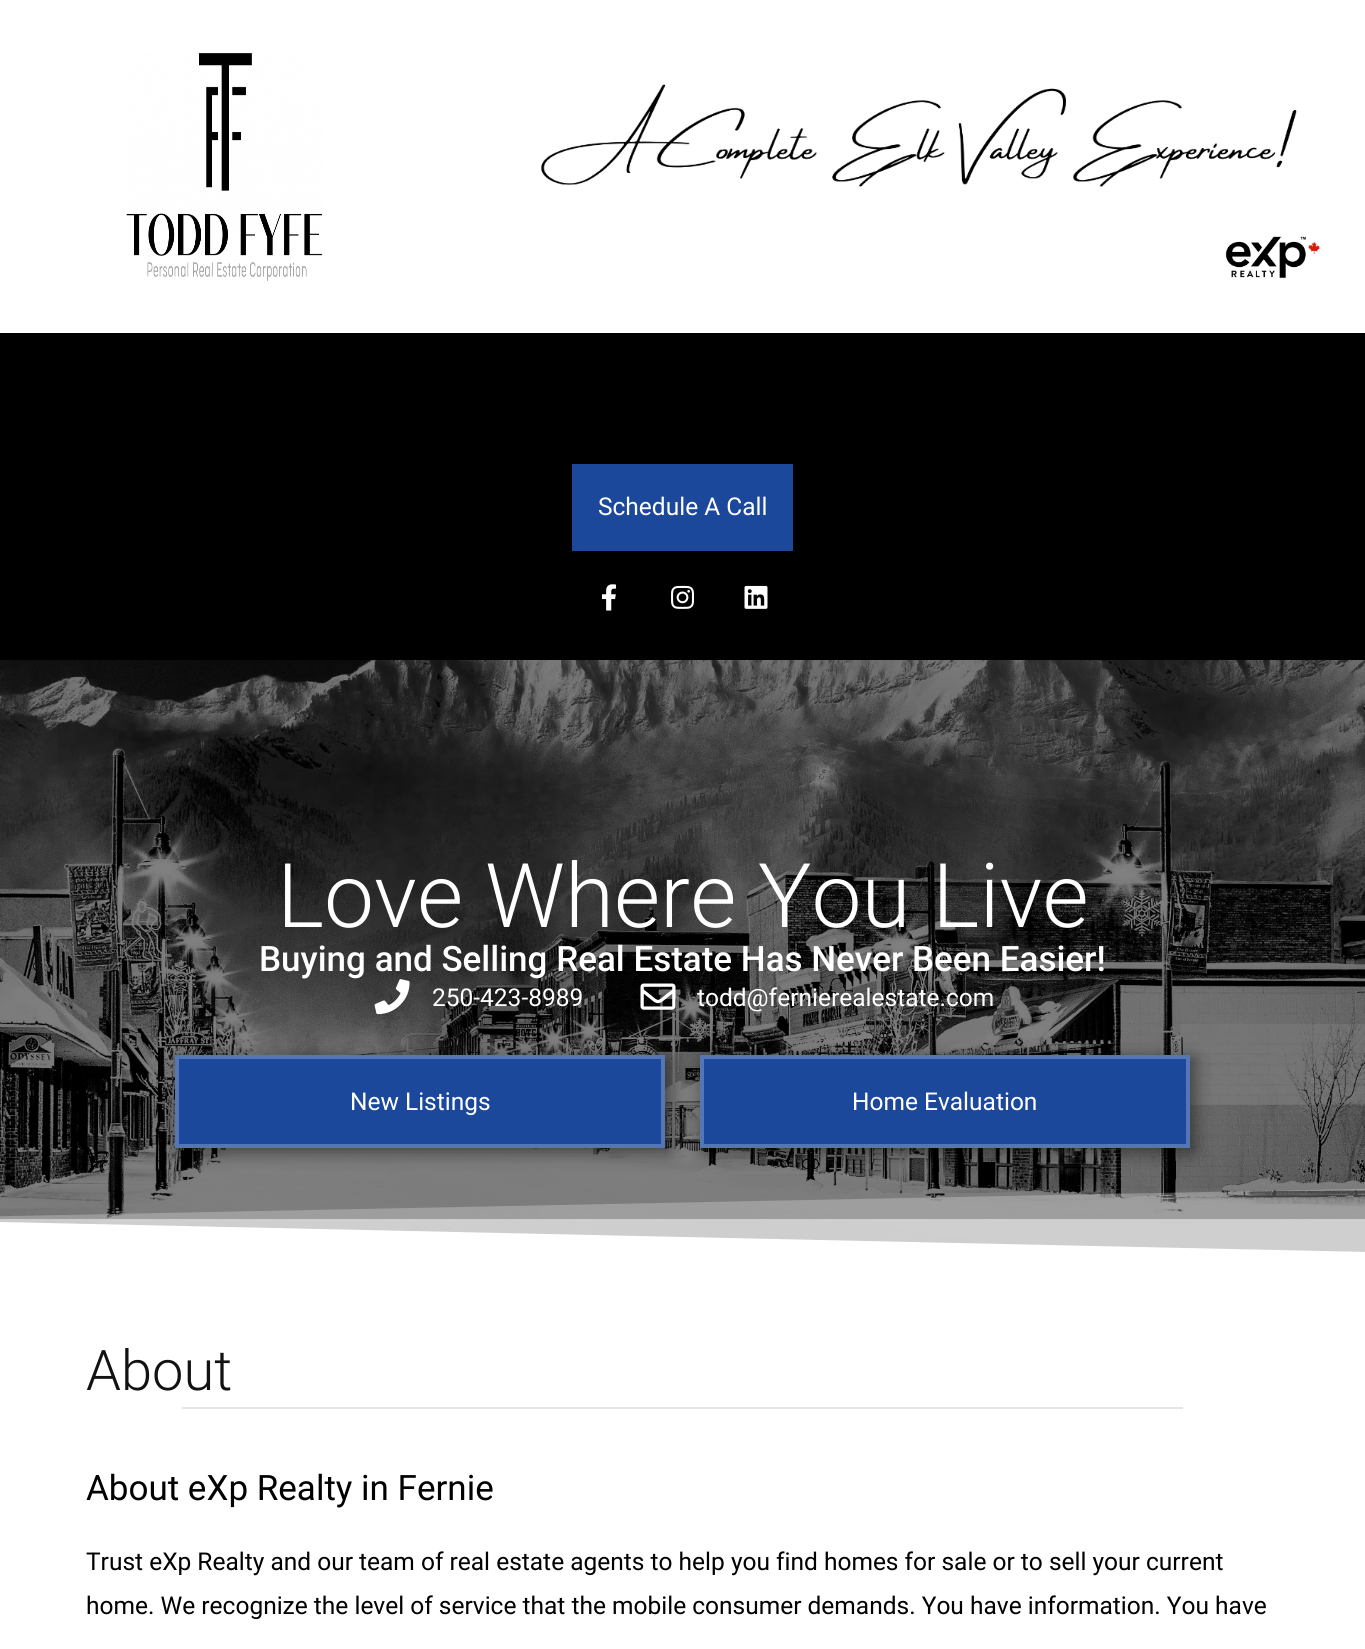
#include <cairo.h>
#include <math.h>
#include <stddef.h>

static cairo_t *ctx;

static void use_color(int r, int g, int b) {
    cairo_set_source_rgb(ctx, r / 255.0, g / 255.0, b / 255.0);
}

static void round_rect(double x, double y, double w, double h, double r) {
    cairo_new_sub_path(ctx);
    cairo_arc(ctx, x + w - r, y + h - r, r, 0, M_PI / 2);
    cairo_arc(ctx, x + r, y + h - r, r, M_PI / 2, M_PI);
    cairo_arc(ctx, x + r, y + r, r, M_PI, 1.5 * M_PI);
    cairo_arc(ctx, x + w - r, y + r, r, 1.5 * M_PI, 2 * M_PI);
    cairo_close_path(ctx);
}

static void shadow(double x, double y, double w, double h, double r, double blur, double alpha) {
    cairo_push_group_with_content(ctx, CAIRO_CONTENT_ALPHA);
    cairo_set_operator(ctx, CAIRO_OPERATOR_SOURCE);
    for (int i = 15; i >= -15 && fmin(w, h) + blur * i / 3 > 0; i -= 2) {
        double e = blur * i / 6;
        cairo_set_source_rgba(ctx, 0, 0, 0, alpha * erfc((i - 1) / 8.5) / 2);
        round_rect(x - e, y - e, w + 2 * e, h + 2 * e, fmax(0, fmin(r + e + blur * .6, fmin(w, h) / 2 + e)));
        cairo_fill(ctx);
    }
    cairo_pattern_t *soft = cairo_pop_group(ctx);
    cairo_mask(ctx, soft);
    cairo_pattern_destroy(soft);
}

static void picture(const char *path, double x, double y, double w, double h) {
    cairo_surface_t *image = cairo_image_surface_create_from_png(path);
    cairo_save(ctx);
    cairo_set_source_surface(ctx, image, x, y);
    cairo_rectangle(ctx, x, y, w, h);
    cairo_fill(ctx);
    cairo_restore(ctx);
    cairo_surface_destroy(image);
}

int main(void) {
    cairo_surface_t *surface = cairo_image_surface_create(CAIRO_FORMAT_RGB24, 1365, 1649);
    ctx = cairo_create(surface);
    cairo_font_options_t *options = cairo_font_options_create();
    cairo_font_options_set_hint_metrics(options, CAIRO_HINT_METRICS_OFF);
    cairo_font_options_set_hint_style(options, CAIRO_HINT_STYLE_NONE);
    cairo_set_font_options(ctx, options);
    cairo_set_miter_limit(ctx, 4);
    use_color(255, 255, 255);
    cairo_paint(ctx);
    picture("img1.png", 126, 53, 197, 228);
    picture("img2.png", 541, 84, 756, 103);
    picture("img3.png", 1225, 236, 95, 43);
    use_color(0, 0, 0);
    cairo_rectangle(ctx, 0, 333, 1365, 327);
    cairo_fill(ctx);
    use_color(27, 72, 155);
    cairo_rectangle(ctx, 572, 464, 221, 87);
    cairo_fill(ctx);
    cairo_select_font_face(ctx, "Roboto", CAIRO_FONT_SLANT_NORMAL, CAIRO_FONT_WEIGHT_NORMAL);
    cairo_set_font_size(ctx, 24.5);
    use_color(255, 255, 255);
    cairo_move_to(ctx, 598, 515);
    cairo_show_text(ctx, "Schedule A Call");
    picture("img4.png", 601, 584, 16, 27);
    picture("img5.png", 671, 585, 24, 24);
    picture("img6.png", 744, 585, 24, 24);
    picture("img7.png", 0, 660, 1365, 592);
    cairo_select_font_face(ctx, "Roboto Light", CAIRO_FONT_SLANT_NORMAL, CAIRO_FONT_WEIGHT_NORMAL);
    cairo_set_font_size(ctx, 89.25);
    cairo_move_to(ctx, 277, 927);
    cairo_show_text(ctx, "Love Where You Live");
    cairo_select_font_face(ctx, "Roboto Medium", CAIRO_FONT_SLANT_NORMAL, CAIRO_FONT_WEIGHT_NORMAL);
    cairo_set_font_size(ctx, 35);
    cairo_move_to(ctx, 259, 971);
    cairo_show_text(ctx, "Buying and Selling Real Estate Has Never Been Easier!");
    picture("img8.png", 374, 979, 36, 36);
    cairo_select_font_face(ctx, "Roboto", CAIRO_FONT_SLANT_NORMAL, CAIRO_FONT_WEIGHT_NORMAL);
    cairo_set_font_size(ctx, 24.5);
    cairo_move_to(ctx, 432, 1006);
    cairo_show_text(ctx, "250-423-8989");
    picture("img9.png", 640, 983, 36, 27);
    cairo_move_to(ctx, 697, 1006);
    cairo_show_text(ctx, "todd@fernierealestate.com");
    use_color(0, 0, 0);
    shadow(179, 1059, 490, 93, 0, 9, 0.5);
    use_color(27, 72, 155);
    cairo_rectangle(ctx, 177, 1057, 486, 89);
    cairo_fill_preserve(ctx);
    use_color(84, 118, 180);
    cairo_set_line_width(ctx, 4);
    cairo_stroke(ctx);
    use_color(255, 255, 255);
    cairo_move_to(ctx, 350, 1110);
    cairo_show_text(ctx, "New Listings");
    use_color(0, 0, 0);
    shadow(704, 1059, 490, 93, 0, 9, 0.5);
    use_color(27, 72, 155);
    cairo_rectangle(ctx, 702, 1057, 486, 89);
    cairo_fill_preserve(ctx);
    use_color(84, 118, 180);
    cairo_stroke(ctx);
    use_color(255, 255, 255);
    cairo_move_to(ctx, 852, 1110);
    cairo_show_text(ctx, "Home Evaluation");
    cairo_new_path(ctx);
    cairo_move_to(ctx, 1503, 1255);
    cairo_line_to(ctx, -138, 1255);
    cairo_line_to(ctx, -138, 1219);
    cairo_close_path(ctx);
    cairo_fill(ctx);
    cairo_set_source_rgba(ctx, 1, 1, 1, 0.5);
    cairo_rectangle(ctx, 0, 1219, 1365, 33);
    cairo_fill(ctx);
    cairo_set_source_rgba(ctx, 1, 1, 1, 0.25);
    cairo_new_path(ctx);
    cairo_move_to(ctx, -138, 1255);
    cairo_line_to(ctx, 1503, 1255);
    cairo_line_to(ctx, 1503, 1186);
    cairo_line_to(ctx, -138, 1219);
    cairo_close_path(ctx);
    cairo_fill(ctx);
    cairo_select_font_face(ctx, "Roboto Light", CAIRO_FONT_SLANT_NORMAL, CAIRO_FONT_WEIGHT_NORMAL);
    cairo_set_font_size(ctx, 56);
    use_color(18, 18, 18);
    cairo_move_to(ctx, 86, 1390);
    cairo_show_text(ctx, "About");
    use_color(229, 229, 229);
    cairo_rectangle(ctx, 182, 1407, 1001, 2);
    cairo_fill(ctx);
    cairo_select_font_face(ctx, "Roboto", CAIRO_FONT_SLANT_NORMAL, CAIRO_FONT_WEIGHT_NORMAL);
    cairo_set_font_size(ctx, 35);
    use_color(0, 0, 0);
    cairo_move_to(ctx, 86, 1500);
    cairo_show_text(ctx, "About eXp Realty in Fernie");
    cairo_set_font_size(ctx, 24.5);
    cairo_move_to(ctx, 86, 1570);
    cairo_show_text(ctx, "Trust eXp Realty and our team of real estate agents to help you find homes for sale or to sell your current");
    cairo_move_to(ctx, 86, 1614);
    cairo_show_text(ctx, "home. We recognize the level of service that the mobile consumer demands. You have information. You have");
    cairo_surface_write_to_png(surface, "result.png");
    cairo_font_options_destroy(options);
    cairo_destroy(ctx);
    cairo_surface_destroy(surface);
    return 0;
}
